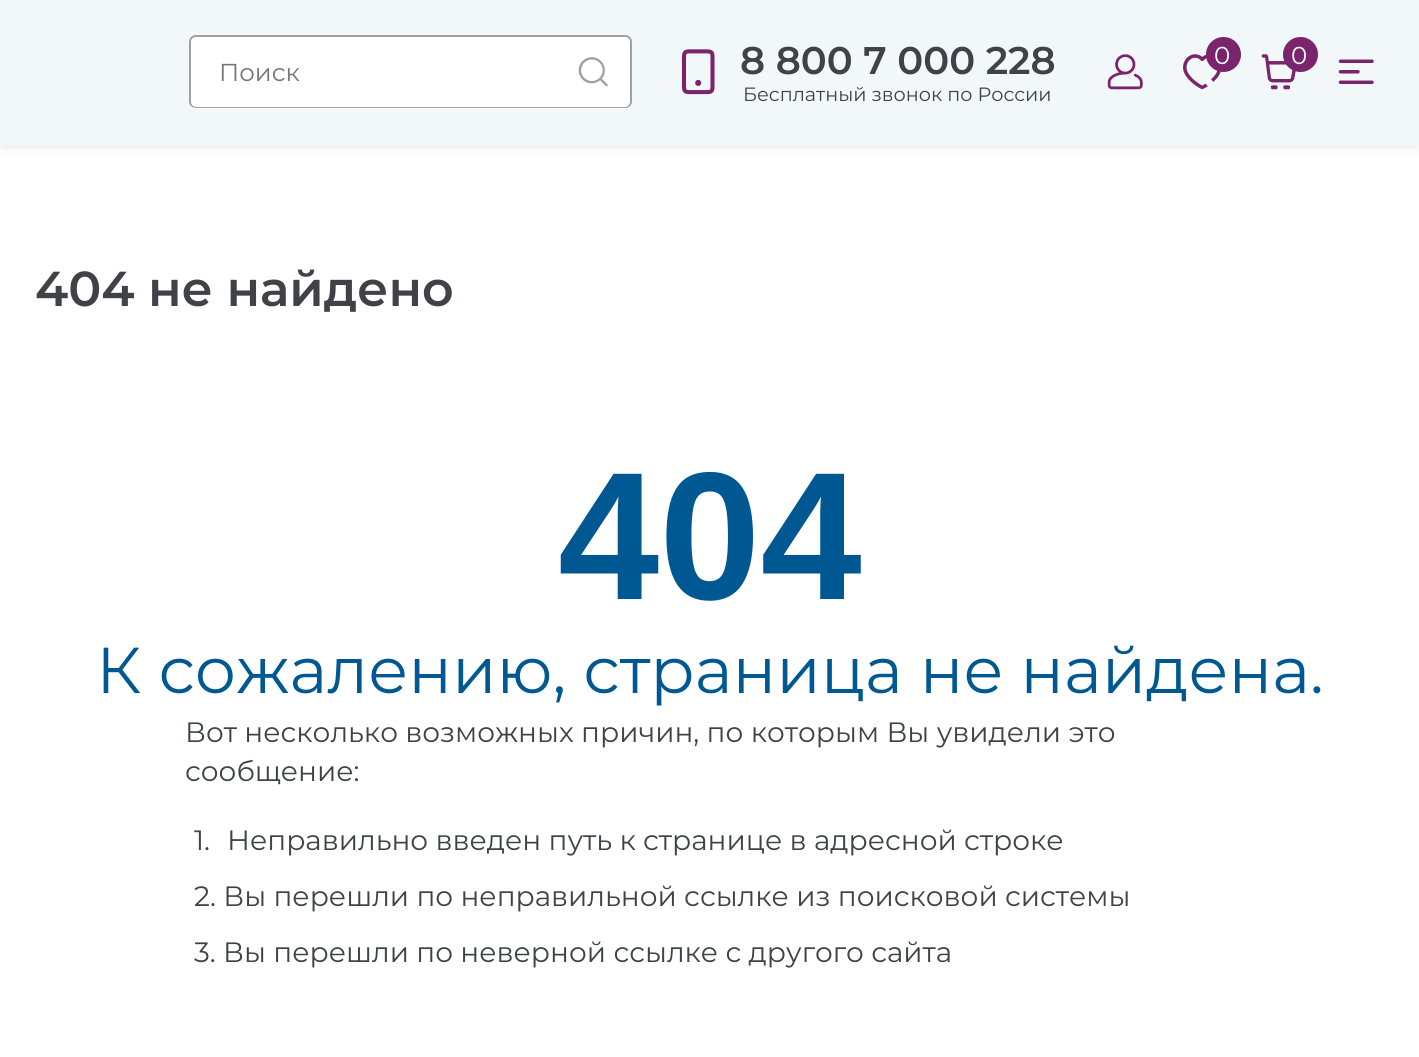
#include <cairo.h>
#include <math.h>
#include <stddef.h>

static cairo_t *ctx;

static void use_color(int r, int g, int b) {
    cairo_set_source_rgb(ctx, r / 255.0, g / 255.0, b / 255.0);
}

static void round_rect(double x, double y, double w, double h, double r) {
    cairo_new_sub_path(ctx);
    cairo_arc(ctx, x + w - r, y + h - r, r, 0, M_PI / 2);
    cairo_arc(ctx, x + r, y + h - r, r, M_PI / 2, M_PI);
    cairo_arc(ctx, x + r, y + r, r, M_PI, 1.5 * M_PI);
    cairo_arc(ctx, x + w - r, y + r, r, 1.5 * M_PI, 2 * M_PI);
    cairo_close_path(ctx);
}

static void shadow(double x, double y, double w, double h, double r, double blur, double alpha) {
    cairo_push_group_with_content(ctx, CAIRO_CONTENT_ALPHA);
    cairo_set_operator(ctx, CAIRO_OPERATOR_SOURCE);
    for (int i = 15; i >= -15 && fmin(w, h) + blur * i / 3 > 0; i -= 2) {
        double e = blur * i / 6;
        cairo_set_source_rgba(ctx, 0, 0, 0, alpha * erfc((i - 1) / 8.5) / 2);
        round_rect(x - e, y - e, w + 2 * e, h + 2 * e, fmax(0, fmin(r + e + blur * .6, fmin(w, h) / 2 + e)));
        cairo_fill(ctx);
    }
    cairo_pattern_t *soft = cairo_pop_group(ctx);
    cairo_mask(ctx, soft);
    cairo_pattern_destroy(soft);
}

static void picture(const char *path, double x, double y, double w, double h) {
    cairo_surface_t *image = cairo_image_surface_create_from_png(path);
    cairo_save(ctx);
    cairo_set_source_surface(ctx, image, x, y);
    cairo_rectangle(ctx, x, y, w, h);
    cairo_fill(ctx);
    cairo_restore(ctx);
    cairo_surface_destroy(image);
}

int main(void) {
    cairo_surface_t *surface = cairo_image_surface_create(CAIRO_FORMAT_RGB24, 1419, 1057);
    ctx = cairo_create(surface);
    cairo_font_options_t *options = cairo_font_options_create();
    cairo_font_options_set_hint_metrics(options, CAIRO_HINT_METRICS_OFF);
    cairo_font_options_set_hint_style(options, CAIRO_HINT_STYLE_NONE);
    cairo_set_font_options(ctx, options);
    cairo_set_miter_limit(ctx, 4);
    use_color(255, 255, 255);
    cairo_paint(ctx);
    use_color(0, 0, 0);
    shadow(0, 4, 1419, 145, 0, 4.5, 0.07);
    use_color(242, 247, 249);
    cairo_rectangle(ctx, 0, 0, 1419, 145);
    cairo_fill(ctx);
    use_color(255, 255, 255);
    round_rect(189, 35, 443, 74, 7);
    cairo_fill(ctx);
    cairo_new_path(ctx);
    cairo_move_to(ctx, 196, 35);
    cairo_line_to(ctx, 558, 35);
    cairo_line_to(ctx, 558, 109);
    cairo_line_to(ctx, 196, 109);
    cairo_curve_to(ctx, 192, 109, 189, 106, 189, 102);
    cairo_line_to(ctx, 189, 42);
    cairo_curve_to(ctx, 189, 38, 192, 35, 196, 35);
    cairo_close_path(ctx);
    cairo_fill(ctx);
    use_color(161, 161, 161);
    cairo_set_fill_rule(ctx, CAIRO_FILL_RULE_EVEN_ODD);
    cairo_new_path(ctx);
    cairo_move_to(ctx, 196, 35);
    cairo_line_to(ctx, 558, 35);
    cairo_line_to(ctx, 558, 108);
    cairo_line_to(ctx, 196, 108);
    cairo_curve_to(ctx, 192, 108, 189, 105, 189, 102);
    cairo_line_to(ctx, 189, 42);
    cairo_curve_to(ctx, 189, 38, 192, 35, 196, 35);
    cairo_close_path(ctx);
    cairo_move_to(ctx, 196, 37);
    cairo_line_to(ctx, 558, 37);
    cairo_line_to(ctx, 558, 107);
    cairo_line_to(ctx, 196, 107);
    cairo_curve_to(ctx, 193, 107, 191, 104, 191, 102);
    cairo_line_to(ctx, 191, 42);
    cairo_curve_to(ctx, 191, 39, 193, 37, 196, 37);
    cairo_close_path(ctx);
    cairo_fill(ctx);
    cairo_select_font_face(ctx, "Montserrat", CAIRO_FONT_SLANT_NORMAL, CAIRO_FONT_WEIGHT_NORMAL);
    cairo_set_font_size(ctx, 24.5);
    use_color(117, 117, 117);
    cairo_move_to(ctx, 219, 81);
    cairo_show_text(ctx, "Поиск");
    picture("img1.png", 578, 57, 30, 30);
    use_color(161, 161, 161);
    cairo_new_path(ctx);
    cairo_move_to(ctx, 558, 35);
    cairo_line_to(ctx, 625, 35);
    cairo_curve_to(ctx, 629, 35, 632, 38, 632, 42);
    cairo_line_to(ctx, 632, 102);
    cairo_curve_to(ctx, 632, 105, 629, 108, 625, 108);
    cairo_line_to(ctx, 558, 108);
    cairo_close_path(ctx);
    cairo_move_to(ctx, 558, 37);
    cairo_line_to(ctx, 625, 37);
    cairo_curve_to(ctx, 628, 37, 630, 39, 630, 42);
    cairo_line_to(ctx, 630, 102);
    cairo_curve_to(ctx, 630, 104, 628, 107, 625, 107);
    cairo_line_to(ctx, 558, 107);
    cairo_close_path(ctx);
    cairo_fill(ctx);
    picture("img2.png", 681, 49, 34, 46);
    cairo_select_font_face(ctx, "Montserrat SemiBold", CAIRO_FONT_SLANT_NORMAL, CAIRO_FONT_WEIGHT_NORMAL);
    cairo_set_font_size(ctx, 38.5);
    use_color(63, 66, 70);
    cairo_move_to(ctx, 740, 74);
    cairo_show_text(ctx, "8 800 7 000 228");
    cairo_select_font_face(ctx, "Montserrat", CAIRO_FONT_SLANT_NORMAL, CAIRO_FONT_WEIGHT_NORMAL);
    cairo_set_font_size(ctx, 19.25);
    cairo_move_to(ctx, 743, 101);
    cairo_show_text(ctx, "Бесплатный звонок по России");
    picture("img3.png", 1107, 54, 36, 36);
    picture("img4.png", 1183, 54, 38, 36);
    use_color(122, 36, 109);
    cairo_arc(ctx, 1223.5, 54.5, 17.5, 0, 2 * M_PI);
    cairo_fill(ctx);
    cairo_set_font_size(ctx, 24.5);
    use_color(255, 255, 255);
    cairo_move_to(ctx, 1214, 64);
    cairo_show_text(ctx, "0");
    picture("img5.png", 1261, 54, 35, 36);
    use_color(122, 36, 109);
    cairo_arc(ctx, 1300.5, 54.5, 17.5, 0, 2 * M_PI);
    cairo_fill(ctx);
    use_color(255, 255, 255);
    cairo_move_to(ctx, 1291, 64);
    cairo_show_text(ctx, "0");
    picture("img6.png", 1338, 59, 36, 25);
    cairo_select_font_face(ctx, "Montserrat SemiBold", CAIRO_FONT_SLANT_NORMAL, CAIRO_FONT_WEIGHT_NORMAL);
    cairo_set_font_size(ctx, 49);
    use_color(63, 66, 70);
    cairo_move_to(ctx, 35, 306);
    cairo_show_text(ctx, "404 не найдено");
    cairo_select_font_face(ctx, "Liberation Sans", CAIRO_FONT_SLANT_NORMAL, CAIRO_FONT_WEIGHT_BOLD);
    cairo_set_font_size(ctx, 182);
    use_color(0, 88, 147);
    cairo_move_to(ctx, 558, 599);
    cairo_show_text(ctx, "404");
    cairo_select_font_face(ctx, "Montserrat", CAIRO_FONT_SLANT_NORMAL, CAIRO_FONT_WEIGHT_NORMAL);
    cairo_set_font_size(ctx, 64.75);
    cairo_move_to(ctx, 96, 693);
    cairo_show_text(ctx, "К сожалению, страница не найдена.");
    cairo_set_font_size(ctx, 28);
    use_color(63, 66, 70);
    cairo_move_to(ctx, 185, 742);
    cairo_show_text(ctx, "Вот несколько возможных причин, по которым Вы увидели это");
    cairo_move_to(ctx, 185, 781);
    cairo_show_text(ctx, "сообщение:");
    cairo_move_to(ctx, 194, 850);
    cairo_show_text(ctx, "1.");
    cairo_move_to(ctx, 227, 850);
    cairo_show_text(ctx, "Неправильно введен путь к странице в адресной строке");
    cairo_move_to(ctx, 194, 906);
    cairo_show_text(ctx, "2. Вы перешли по неправильной ссылке из поисковой системы");
    cairo_move_to(ctx, 194, 962);
    cairo_show_text(ctx, "3. Вы перешли по неверной ссылке с другого сайта");
    cairo_surface_write_to_png(surface, "result.png");
    cairo_font_options_destroy(options);
    cairo_destroy(ctx);
    cairo_surface_destroy(surface);
    return 0;
}
